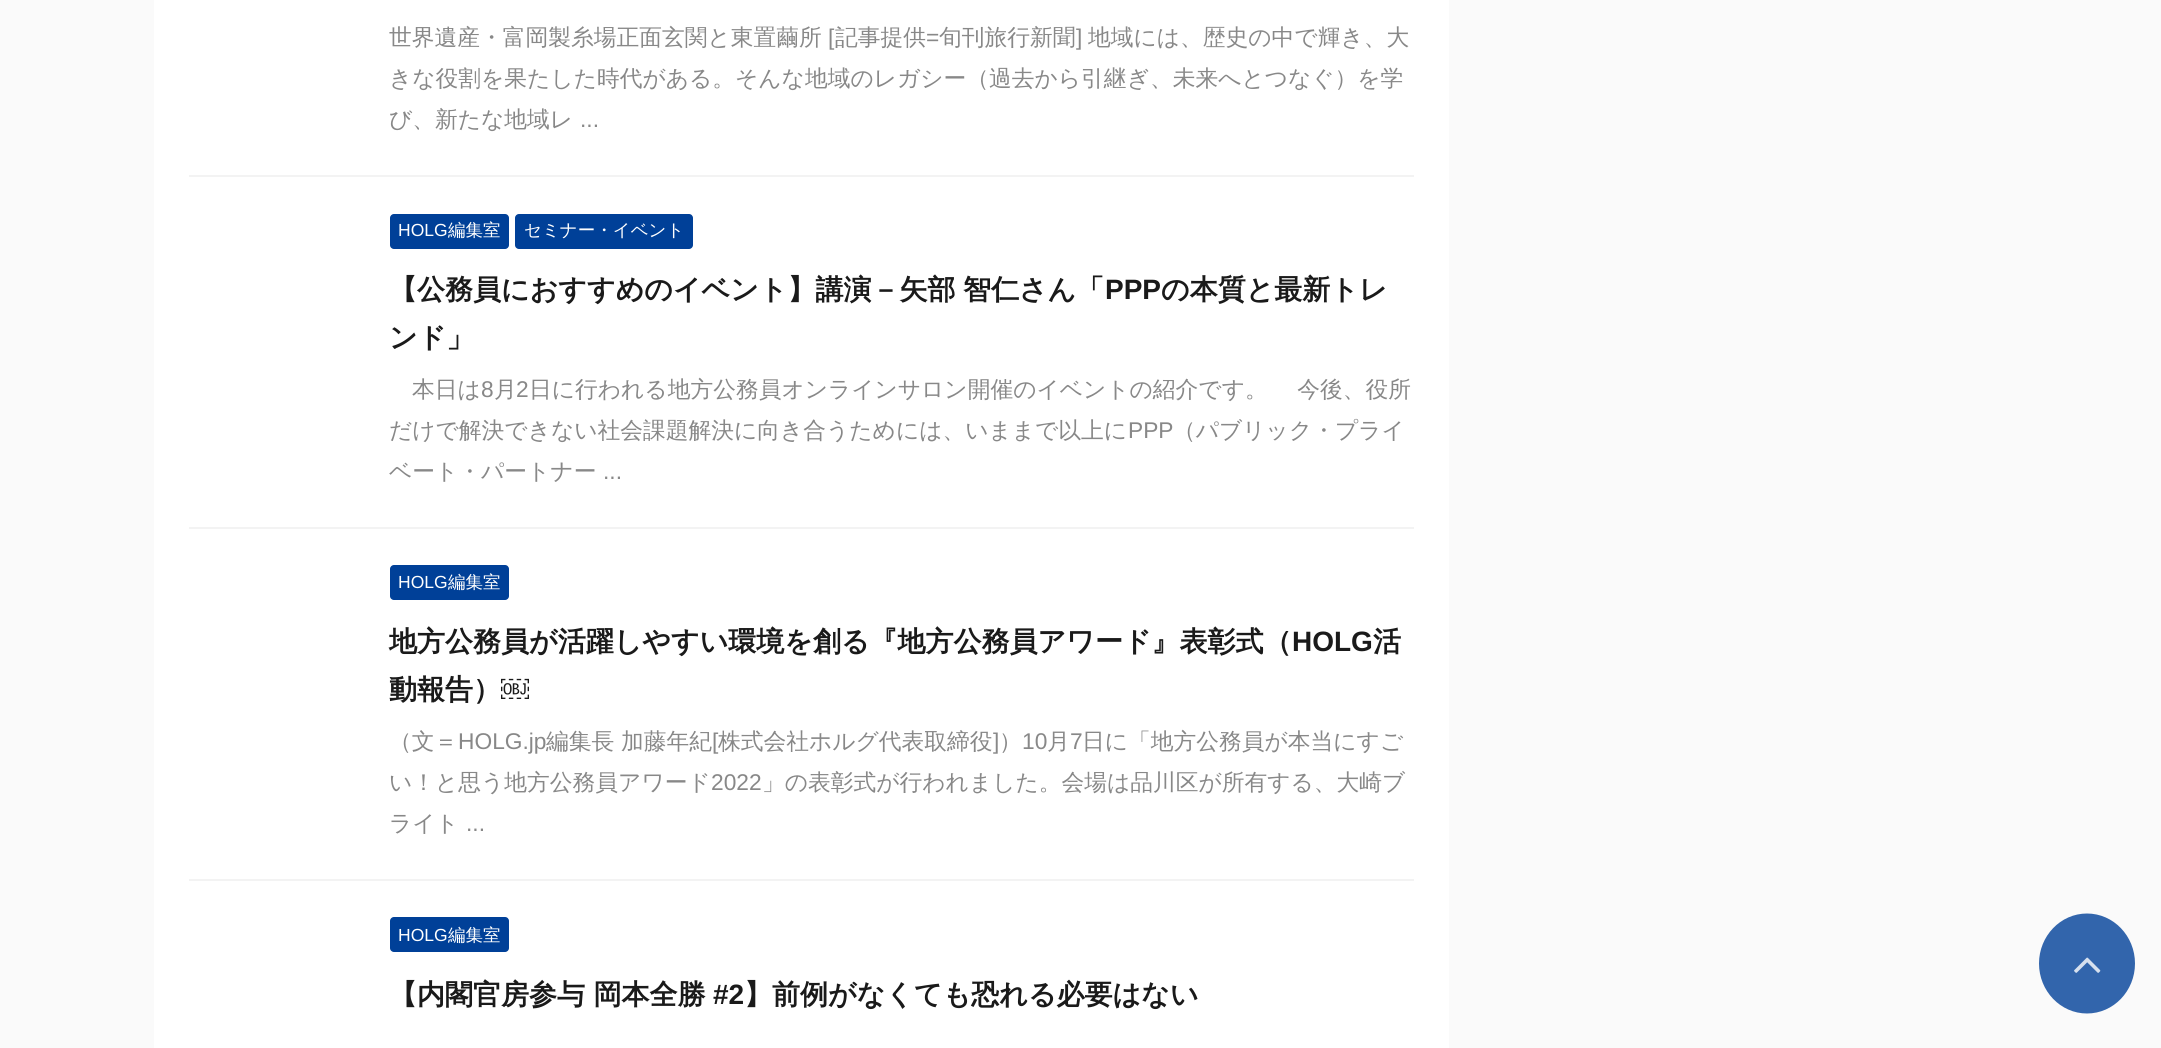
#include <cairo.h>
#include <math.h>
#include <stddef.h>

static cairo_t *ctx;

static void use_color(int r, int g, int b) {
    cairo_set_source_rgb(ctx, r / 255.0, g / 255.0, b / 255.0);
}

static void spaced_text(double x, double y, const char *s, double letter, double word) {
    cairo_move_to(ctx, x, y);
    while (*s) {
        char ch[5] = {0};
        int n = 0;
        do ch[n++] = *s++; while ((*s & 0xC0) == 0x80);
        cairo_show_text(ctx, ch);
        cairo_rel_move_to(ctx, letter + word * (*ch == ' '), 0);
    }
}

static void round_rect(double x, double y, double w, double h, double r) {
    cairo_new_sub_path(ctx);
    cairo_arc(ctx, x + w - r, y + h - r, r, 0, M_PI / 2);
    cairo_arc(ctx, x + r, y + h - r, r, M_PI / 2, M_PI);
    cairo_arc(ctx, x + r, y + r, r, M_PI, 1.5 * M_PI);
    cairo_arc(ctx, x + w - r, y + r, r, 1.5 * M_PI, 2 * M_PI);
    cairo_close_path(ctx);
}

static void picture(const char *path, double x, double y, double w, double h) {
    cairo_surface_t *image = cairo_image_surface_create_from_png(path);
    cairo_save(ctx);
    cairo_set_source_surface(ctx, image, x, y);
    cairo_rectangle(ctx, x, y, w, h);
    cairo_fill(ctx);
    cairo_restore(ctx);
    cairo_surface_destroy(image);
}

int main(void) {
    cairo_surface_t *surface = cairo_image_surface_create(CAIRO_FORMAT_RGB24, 2161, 1048);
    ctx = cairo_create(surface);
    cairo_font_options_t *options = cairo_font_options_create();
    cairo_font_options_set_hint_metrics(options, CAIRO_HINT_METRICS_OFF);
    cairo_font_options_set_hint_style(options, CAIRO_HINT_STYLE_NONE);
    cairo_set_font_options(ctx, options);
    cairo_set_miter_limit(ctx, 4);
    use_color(250, 250, 250);
    cairo_paint(ctx);
    use_color(255, 255, 255);
    cairo_rectangle(ctx, 154, 0, 1295, 1048);
    cairo_fill(ctx);
    use_color(243, 243, 243);
    cairo_rectangle(ctx, 189, 175, 1225, 2);
    cairo_fill(ctx);
    cairo_select_font_face(ctx, "WenQuanYi Zen Hei Medium", CAIRO_FONT_SLANT_NORMAL, CAIRO_FONT_WEIGHT_NORMAL);
    cairo_set_font_size(ctx, 22.75);
    use_color(136, 136, 136);
    cairo_move_to(ctx, 389, 45);
    cairo_show_text(ctx, "世界遺産・富岡製糸場正面玄関と東置繭所");
    cairo_select_font_face(ctx, "Liberation Sans", CAIRO_FONT_SLANT_NORMAL, CAIRO_FONT_WEIGHT_NORMAL);
    cairo_move_to(ctx, 828, 45);
    cairo_show_text(ctx, "[");
    cairo_select_font_face(ctx, "WenQuanYi Zen Hei Medium", CAIRO_FONT_SLANT_NORMAL, CAIRO_FONT_WEIGHT_NORMAL);
    cairo_move_to(ctx, 835, 45);
    cairo_show_text(ctx, "記事提供");
    cairo_select_font_face(ctx, "Liberation Sans", CAIRO_FONT_SLANT_NORMAL, CAIRO_FONT_WEIGHT_NORMAL);
    cairo_move_to(ctx, 926, 45);
    cairo_show_text(ctx, "=");
    cairo_select_font_face(ctx, "WenQuanYi Zen Hei Medium", CAIRO_FONT_SLANT_NORMAL, CAIRO_FONT_WEIGHT_NORMAL);
    cairo_move_to(ctx, 939, 45);
    cairo_show_text(ctx, "旬刊旅行新聞");
    cairo_select_font_face(ctx, "Liberation Sans", CAIRO_FONT_SLANT_NORMAL, CAIRO_FONT_WEIGHT_NORMAL);
    cairo_move_to(ctx, 1076, 45);
    cairo_show_text(ctx, "]");
    cairo_select_font_face(ctx, "WenQuanYi Zen Hei Medium", CAIRO_FONT_SLANT_NORMAL, CAIRO_FONT_WEIGHT_NORMAL);
    cairo_move_to(ctx, 1088, 45);
    cairo_show_text(ctx, "地域には、歴史の中で輝き、大");
    cairo_move_to(ctx, 389, 86);
    cairo_show_text(ctx, "きな役割を果たした時代がある。そんな地域のレガシー（過去から引継ぎ、未来へとつなぐ）を学");
    cairo_move_to(ctx, 389, 127);
    cairo_show_text(ctx, "び、新たな地域レ");
    cairo_select_font_face(ctx, "Liberation Sans", CAIRO_FONT_SLANT_NORMAL, CAIRO_FONT_WEIGHT_NORMAL);
    cairo_move_to(ctx, 580, 127);
    cairo_show_text(ctx, "...");
    use_color(243, 243, 243);
    cairo_rectangle(ctx, 189, 527, 1225, 2);
    cairo_fill(ctx);
    use_color(0, 64, 152);
    round_rect(390, 214, 119, 35, 4);
    cairo_fill(ctx);
    cairo_set_font_size(ctx, 17.5);
    use_color(255, 255, 255);
    cairo_move_to(ctx, 398, 236);
    cairo_show_text(ctx, "HOLG");
    cairo_select_font_face(ctx, "WenQuanYi Zen Hei Medium", CAIRO_FONT_SLANT_NORMAL, CAIRO_FONT_WEIGHT_NORMAL);
    cairo_move_to(ctx, 448, 236);
    cairo_show_text(ctx, "編集室");
    use_color(0, 64, 152);
    round_rect(515, 214, 178, 35, 4);
    cairo_fill(ctx);
    use_color(255, 255, 255);
    cairo_move_to(ctx, 524, 236);
    cairo_show_text(ctx, "セミナー・イベント");
    cairo_select_font_face(ctx, "WenQuanYi Zen Hei", CAIRO_FONT_SLANT_NORMAL, CAIRO_FONT_WEIGHT_BOLD);
    cairo_set_font_size(ctx, 28);
    use_color(26, 26, 26);
    spaced_text(389, 299, "【公務員におすすめのイベント】講演－矢部 智仁さん「", 0, -1);
    cairo_select_font_face(ctx, "Liberation Sans", CAIRO_FONT_SLANT_NORMAL, CAIRO_FONT_WEIGHT_BOLD);
    cairo_move_to(ctx, 1105, 299);
    cairo_show_text(ctx, "PPP");
    cairo_select_font_face(ctx, "WenQuanYi Zen Hei", CAIRO_FONT_SLANT_NORMAL, CAIRO_FONT_WEIGHT_BOLD);
    cairo_move_to(ctx, 1161, 299);
    cairo_show_text(ctx, "の本質と最新トレ");
    cairo_move_to(ctx, 389, 347);
    cairo_show_text(ctx, "ンド」");
    cairo_select_font_face(ctx, "WenQuanYi Zen Hei Medium", CAIRO_FONT_SLANT_NORMAL, CAIRO_FONT_WEIGHT_NORMAL);
    cairo_set_font_size(ctx, 22.75);
    use_color(136, 136, 136);
    cairo_move_to(ctx, 412, 397);
    cairo_show_text(ctx, "本日は");
    cairo_select_font_face(ctx, "Liberation Sans", CAIRO_FONT_SLANT_NORMAL, CAIRO_FONT_WEIGHT_NORMAL);
    cairo_move_to(ctx, 481, 397);
    cairo_show_text(ctx, "8");
    cairo_select_font_face(ctx, "WenQuanYi Zen Hei Medium", CAIRO_FONT_SLANT_NORMAL, CAIRO_FONT_WEIGHT_NORMAL);
    cairo_move_to(ctx, 494, 397);
    cairo_show_text(ctx, "月");
    cairo_select_font_face(ctx, "Liberation Sans", CAIRO_FONT_SLANT_NORMAL, CAIRO_FONT_WEIGHT_NORMAL);
    cairo_move_to(ctx, 516, 397);
    cairo_show_text(ctx, "2");
    cairo_select_font_face(ctx, "WenQuanYi Zen Hei Medium", CAIRO_FONT_SLANT_NORMAL, CAIRO_FONT_WEIGHT_NORMAL);
    cairo_move_to(ctx, 529, 397);
    cairo_show_text(ctx, "日に行われる地方公務員オンラインサロン開催のイベントの紹介です。 　今後、役所");
    cairo_move_to(ctx, 389, 438);
    cairo_show_text(ctx, "だけで解決できない社会課題解決に向き合うためには、いままで以上に");
    cairo_select_font_face(ctx, "Liberation Sans", CAIRO_FONT_SLANT_NORMAL, CAIRO_FONT_WEIGHT_NORMAL);
    cairo_move_to(ctx, 1128, 438);
    cairo_show_text(ctx, "PPP");
    cairo_select_font_face(ctx, "WenQuanYi Zen Hei Medium", CAIRO_FONT_SLANT_NORMAL, CAIRO_FONT_WEIGHT_NORMAL);
    cairo_move_to(ctx, 1173, 438);
    cairo_show_text(ctx, "（パブリック・プライ");
    cairo_move_to(ctx, 389, 479);
    cairo_show_text(ctx, "ベート・パートナー");
    cairo_select_font_face(ctx, "Liberation Sans", CAIRO_FONT_SLANT_NORMAL, CAIRO_FONT_WEIGHT_NORMAL);
    cairo_move_to(ctx, 603, 479);
    cairo_show_text(ctx, "...");
    use_color(243, 243, 243);
    cairo_rectangle(ctx, 189, 879, 1225, 2);
    cairo_fill(ctx);
    use_color(0, 64, 152);
    round_rect(390, 565, 119, 35, 4);
    cairo_fill(ctx);
    cairo_set_font_size(ctx, 17.5);
    use_color(255, 255, 255);
    cairo_move_to(ctx, 398, 588);
    cairo_show_text(ctx, "HOLG");
    cairo_select_font_face(ctx, "WenQuanYi Zen Hei Medium", CAIRO_FONT_SLANT_NORMAL, CAIRO_FONT_WEIGHT_NORMAL);
    cairo_move_to(ctx, 448, 588);
    cairo_show_text(ctx, "編集室");
    cairo_select_font_face(ctx, "WenQuanYi Zen Hei", CAIRO_FONT_SLANT_NORMAL, CAIRO_FONT_WEIGHT_BOLD);
    cairo_set_font_size(ctx, 28);
    use_color(26, 26, 26);
    cairo_move_to(ctx, 389, 651);
    cairo_show_text(ctx, "地方公務員が活躍しやすい環境を創る『地方公務員アワード』表彰式（");
    cairo_select_font_face(ctx, "Liberation Sans", CAIRO_FONT_SLANT_NORMAL, CAIRO_FONT_WEIGHT_BOLD);
    cairo_move_to(ctx, 1292, 651);
    cairo_show_text(ctx, "HOLG");
    cairo_select_font_face(ctx, "WenQuanYi Zen Hei", CAIRO_FONT_SLANT_NORMAL, CAIRO_FONT_WEIGHT_BOLD);
    cairo_move_to(ctx, 1373, 651);
    cairo_show_text(ctx, "活");
    cairo_move_to(ctx, 389, 699);
    cairo_show_text(ctx, "動報告）");
    cairo_select_font_face(ctx, "Liberation Sans", CAIRO_FONT_SLANT_NORMAL, CAIRO_FONT_WEIGHT_BOLD);
    cairo_move_to(ctx, 501, 699);
    cairo_show_text(ctx, "￼");
    cairo_select_font_face(ctx, "WenQuanYi Zen Hei Medium", CAIRO_FONT_SLANT_NORMAL, CAIRO_FONT_WEIGHT_NORMAL);
    cairo_set_font_size(ctx, 22.75);
    use_color(136, 136, 136);
    cairo_move_to(ctx, 389, 749);
    cairo_show_text(ctx, "（文＝");
    cairo_select_font_face(ctx, "Liberation Sans", CAIRO_FONT_SLANT_NORMAL, CAIRO_FONT_WEIGHT_NORMAL);
    cairo_move_to(ctx, 458, 749);
    cairo_show_text(ctx, "HOLG.jp");
    cairo_select_font_face(ctx, "WenQuanYi Zen Hei Medium", CAIRO_FONT_SLANT_NORMAL, CAIRO_FONT_WEIGHT_NORMAL);
    cairo_move_to(ctx, 546, 749);
    cairo_show_text(ctx, "編集長 加藤年紀");
    cairo_select_font_face(ctx, "Liberation Sans", CAIRO_FONT_SLANT_NORMAL, CAIRO_FONT_WEIGHT_NORMAL);
    cairo_move_to(ctx, 712, 749);
    cairo_show_text(ctx, "[");
    cairo_select_font_face(ctx, "WenQuanYi Zen Hei Medium", CAIRO_FONT_SLANT_NORMAL, CAIRO_FONT_WEIGHT_NORMAL);
    cairo_move_to(ctx, 718, 749);
    cairo_show_text(ctx, "株式会社ホルグ代表取締役");
    cairo_select_font_face(ctx, "Liberation Sans", CAIRO_FONT_SLANT_NORMAL, CAIRO_FONT_WEIGHT_NORMAL);
    cairo_move_to(ctx, 993, 749);
    cairo_show_text(ctx, "]");
    cairo_select_font_face(ctx, "WenQuanYi Zen Hei Medium", CAIRO_FONT_SLANT_NORMAL, CAIRO_FONT_WEIGHT_NORMAL);
    cairo_move_to(ctx, 999, 749);
    cairo_show_text(ctx, "）");
    cairo_select_font_face(ctx, "Liberation Sans", CAIRO_FONT_SLANT_NORMAL, CAIRO_FONT_WEIGHT_NORMAL);
    cairo_move_to(ctx, 1022, 749);
    cairo_show_text(ctx, "10");
    cairo_select_font_face(ctx, "WenQuanYi Zen Hei Medium", CAIRO_FONT_SLANT_NORMAL, CAIRO_FONT_WEIGHT_NORMAL);
    cairo_move_to(ctx, 1047, 749);
    cairo_show_text(ctx, "月");
    cairo_select_font_face(ctx, "Liberation Sans", CAIRO_FONT_SLANT_NORMAL, CAIRO_FONT_WEIGHT_NORMAL);
    cairo_move_to(ctx, 1070, 749);
    cairo_show_text(ctx, "7");
    cairo_select_font_face(ctx, "WenQuanYi Zen Hei Medium", CAIRO_FONT_SLANT_NORMAL, CAIRO_FONT_WEIGHT_NORMAL);
    cairo_move_to(ctx, 1082, 749);
    cairo_show_text(ctx, "日に「地方公務員が本当にすご");
    cairo_move_to(ctx, 389, 790);
    cairo_show_text(ctx, "い！と思う地方公務員アワード");
    cairo_select_font_face(ctx, "Liberation Sans", CAIRO_FONT_SLANT_NORMAL, CAIRO_FONT_WEIGHT_NORMAL);
    cairo_move_to(ctx, 711, 790);
    cairo_show_text(ctx, "2022");
    cairo_select_font_face(ctx, "WenQuanYi Zen Hei Medium", CAIRO_FONT_SLANT_NORMAL, CAIRO_FONT_WEIGHT_NORMAL);
    cairo_move_to(ctx, 762, 790);
    cairo_show_text(ctx, "」の表彰式が行われました。会場は品川区が所有する、大崎ブ");
    cairo_move_to(ctx, 389, 831);
    cairo_show_text(ctx, "ライト");
    cairo_select_font_face(ctx, "Liberation Sans", CAIRO_FONT_SLANT_NORMAL, CAIRO_FONT_WEIGHT_NORMAL);
    cairo_move_to(ctx, 466, 831);
    cairo_show_text(ctx, "...");
    use_color(0, 64, 152);
    round_rect(390, 917, 119, 35, 4);
    cairo_fill(ctx);
    cairo_set_font_size(ctx, 17.5);
    use_color(255, 255, 255);
    cairo_move_to(ctx, 398, 941);
    cairo_show_text(ctx, "HOLG");
    cairo_select_font_face(ctx, "WenQuanYi Zen Hei Medium", CAIRO_FONT_SLANT_NORMAL, CAIRO_FONT_WEIGHT_NORMAL);
    cairo_move_to(ctx, 448, 941);
    cairo_show_text(ctx, "編集室");
    cairo_select_font_face(ctx, "WenQuanYi Zen Hei", CAIRO_FONT_SLANT_NORMAL, CAIRO_FONT_WEIGHT_BOLD);
    cairo_set_font_size(ctx, 28);
    use_color(26, 26, 26);
    cairo_move_to(ctx, 389, 1004);
    cairo_show_text(ctx, "【内閣官房参与 岡本全勝");
    cairo_select_font_face(ctx, "Liberation Sans", CAIRO_FONT_SLANT_NORMAL, CAIRO_FONT_WEIGHT_BOLD);
    cairo_move_to(ctx, 713, 1004);
    cairo_show_text(ctx, "#2");
    cairo_select_font_face(ctx, "WenQuanYi Zen Hei", CAIRO_FONT_SLANT_NORMAL, CAIRO_FONT_WEIGHT_BOLD);
    cairo_move_to(ctx, 744, 1004);
    cairo_show_text(ctx, "】前例がなくても恐れる必要はない");
    use_color(50, 101, 172);
    cairo_new_path(ctx);
    cairo_move_to(ctx, 2087, 913.5);
    cairo_curve_to(ctx, 2113.5, 913.5, 2135, 936, 2135, 963.5);
    cairo_curve_to(ctx, 2135, 991, 2113.5, 1013.5, 2087, 1013.5);
    cairo_curve_to(ctx, 2060.5, 1013.5, 2039, 991, 2039, 963.5);
    cairo_curve_to(ctx, 2039, 936, 2060.5, 913.5, 2087, 913.5);
    cairo_close_path(ctx);
    cairo_fill(ctx);
    picture("img1.png", 2074, 957, 27, 16);
    cairo_surface_write_to_png(surface, "result.png");
    cairo_font_options_destroy(options);
    cairo_destroy(ctx);
    cairo_surface_destroy(surface);
    return 0;
}
